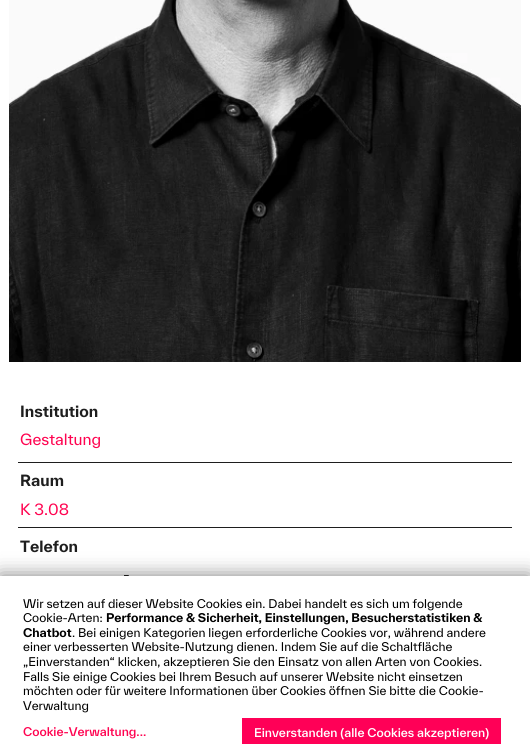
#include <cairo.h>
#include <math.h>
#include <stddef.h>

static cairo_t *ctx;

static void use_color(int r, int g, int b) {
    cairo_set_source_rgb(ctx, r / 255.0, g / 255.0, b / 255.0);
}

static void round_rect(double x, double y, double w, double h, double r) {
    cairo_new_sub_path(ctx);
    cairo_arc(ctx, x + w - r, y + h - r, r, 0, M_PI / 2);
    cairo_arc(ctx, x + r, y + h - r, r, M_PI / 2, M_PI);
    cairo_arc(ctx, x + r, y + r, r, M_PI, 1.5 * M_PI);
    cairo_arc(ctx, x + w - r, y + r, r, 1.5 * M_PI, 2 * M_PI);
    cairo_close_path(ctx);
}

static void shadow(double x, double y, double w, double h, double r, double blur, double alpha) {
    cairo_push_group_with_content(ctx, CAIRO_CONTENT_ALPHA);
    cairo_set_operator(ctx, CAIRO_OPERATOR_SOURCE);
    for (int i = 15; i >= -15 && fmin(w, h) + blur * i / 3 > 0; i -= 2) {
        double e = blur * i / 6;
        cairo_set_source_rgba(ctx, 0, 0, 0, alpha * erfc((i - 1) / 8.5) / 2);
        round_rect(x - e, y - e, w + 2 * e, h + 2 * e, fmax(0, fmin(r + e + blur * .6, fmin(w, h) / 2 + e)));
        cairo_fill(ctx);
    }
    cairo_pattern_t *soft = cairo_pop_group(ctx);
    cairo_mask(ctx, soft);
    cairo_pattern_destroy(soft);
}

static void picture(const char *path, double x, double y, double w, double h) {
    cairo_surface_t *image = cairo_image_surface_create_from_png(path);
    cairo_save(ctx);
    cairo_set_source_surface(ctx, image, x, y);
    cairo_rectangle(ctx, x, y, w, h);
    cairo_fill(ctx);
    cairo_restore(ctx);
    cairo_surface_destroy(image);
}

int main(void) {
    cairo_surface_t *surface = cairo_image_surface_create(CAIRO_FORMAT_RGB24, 530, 756);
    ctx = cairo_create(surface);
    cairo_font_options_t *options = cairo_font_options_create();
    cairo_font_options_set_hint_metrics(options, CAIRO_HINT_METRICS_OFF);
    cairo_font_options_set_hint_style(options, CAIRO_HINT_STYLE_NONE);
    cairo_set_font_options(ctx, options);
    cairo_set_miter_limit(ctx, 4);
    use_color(255, 255, 255);
    cairo_paint(ctx);
    picture("img1.png", 9, 0, 512, 362);
    cairo_select_font_face(ctx, "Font", CAIRO_FONT_SLANT_NORMAL, CAIRO_FONT_WEIGHT_BOLD);
    cairo_set_font_size(ctx, 15);
    use_color(30, 30, 30);
    cairo_move_to(ctx, 20, 417);
    cairo_show_text(ctx, "Institution");
    cairo_rectangle(ctx, 18, 462, 494, 1);
    cairo_fill(ctx);
    cairo_select_font_face(ctx, "Font", CAIRO_FONT_SLANT_NORMAL, CAIRO_FONT_WEIGHT_NORMAL);
    use_color(255, 3, 80);
    cairo_move_to(ctx, 20, 445);
    cairo_show_text(ctx, "Gestaltung");
    cairo_select_font_face(ctx, "Font", CAIRO_FONT_SLANT_NORMAL, CAIRO_FONT_WEIGHT_BOLD);
    use_color(30, 30, 30);
    cairo_move_to(ctx, 20, 486);
    cairo_show_text(ctx, "Raum");
    cairo_rectangle(ctx, 18, 527, 494, 1);
    cairo_fill(ctx);
    cairo_select_font_face(ctx, "Font", CAIRO_FONT_SLANT_NORMAL, CAIRO_FONT_WEIGHT_NORMAL);
    use_color(255, 3, 80);
    cairo_move_to(ctx, 20, 515);
    cairo_show_text(ctx, "K 3.08");
    cairo_select_font_face(ctx, "Font", CAIRO_FONT_SLANT_NORMAL, CAIRO_FONT_WEIGHT_BOLD);
    use_color(30, 30, 30);
    cairo_move_to(ctx, 20, 552);
    cairo_show_text(ctx, "Telefon");
    cairo_select_font_face(ctx, "Font", CAIRO_FONT_SLANT_NORMAL, CAIRO_FONT_WEIGHT_NORMAL);
    use_color(0, 0, 0);
    cairo_move_to(ctx, 123, 580);
    cairo_show_text(ctx, "-");
    use_color(0, 0, 0);
    shadow(0, 576, 530, 180, 0, 10, 0.5);
    use_color(255, 255, 255);
    cairo_rectangle(ctx, 0, 576, 530, 180);
    cairo_fill(ctx);
    cairo_set_font_size(ctx, 11.65);
    use_color(0, 0, 0);
    cairo_move_to(ctx, 23, 608);
    cairo_show_text(ctx, "Wir setzen auf dieser Website Cookies ein. Dabei handelt es sich um folgende");
    cairo_move_to(ctx, 23, 622);
    cairo_show_text(ctx, "Cookie-Arten:");
    cairo_select_font_face(ctx, "Font", CAIRO_FONT_SLANT_NORMAL, CAIRO_FONT_WEIGHT_BOLD);
    cairo_move_to(ctx, 106, 622);
    cairo_show_text(ctx, "Performance & Sicherheit, Einstellungen, Besucherstatistiken &");
    cairo_move_to(ctx, 23, 637);
    cairo_show_text(ctx, "Chatbot");
    cairo_select_font_face(ctx, "Font", CAIRO_FONT_SLANT_NORMAL, CAIRO_FONT_WEIGHT_NORMAL);
    cairo_move_to(ctx, 72, 637);
    cairo_show_text(ctx, ". Bei einigen Kategorien liegen erforderliche Cookies vor, während andere");
    cairo_move_to(ctx, 23, 651);
    cairo_show_text(ctx, "einer verbesserten Website-Nutzung dienen. Indem Sie auf die Schaltfläche");
    cairo_move_to(ctx, 23, 666);
    cairo_show_text(ctx, "„Einverstanden“ klicken, akzeptieren Sie den Einsatz von allen Arten von Cookies.");
    cairo_move_to(ctx, 23, 681);
    cairo_show_text(ctx, "Falls Sie einige Cookies bei Ihrem Besuch auf unserer Website nicht einsetzen");
    cairo_move_to(ctx, 23, 695);
    cairo_show_text(ctx, "möchten oder für weitere Informationen über Cookies öffnen Sie bitte die Cookie-");
    cairo_move_to(ctx, 23, 710);
    cairo_show_text(ctx, "Verwaltung");
    cairo_select_font_face(ctx, "Font Medium", CAIRO_FONT_SLANT_NORMAL, CAIRO_FONT_WEIGHT_NORMAL);
    use_color(255, 3, 80);
    cairo_move_to(ctx, 23, 736);
    cairo_show_text(ctx, "Cookie-Verwaltung...");
    use_color(255, 0, 87);
    cairo_rectangle(ctx, 242, 718, 259, 26);
    cairo_fill(ctx);
    use_color(255, 255, 255);
    cairo_move_to(ctx, 254, 737);
    cairo_show_text(ctx, "Einverstanden (alle Cookies akzeptieren)");
    cairo_surface_write_to_png(surface, "result.png");
    cairo_font_options_destroy(options);
    cairo_destroy(ctx);
    cairo_surface_destroy(surface);
    return 0;
}
